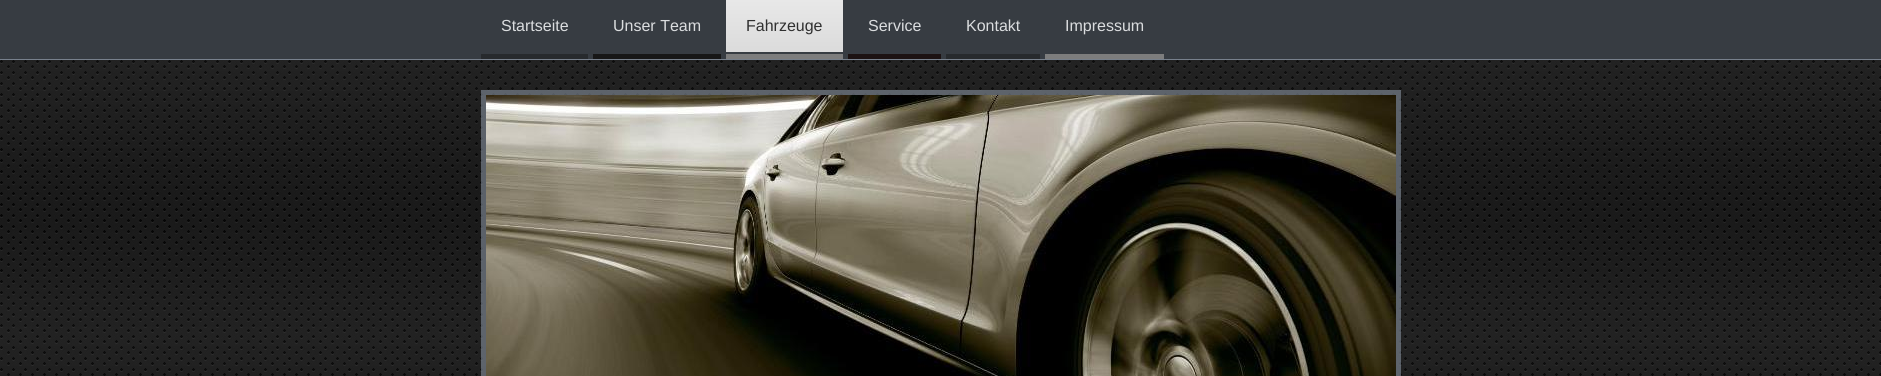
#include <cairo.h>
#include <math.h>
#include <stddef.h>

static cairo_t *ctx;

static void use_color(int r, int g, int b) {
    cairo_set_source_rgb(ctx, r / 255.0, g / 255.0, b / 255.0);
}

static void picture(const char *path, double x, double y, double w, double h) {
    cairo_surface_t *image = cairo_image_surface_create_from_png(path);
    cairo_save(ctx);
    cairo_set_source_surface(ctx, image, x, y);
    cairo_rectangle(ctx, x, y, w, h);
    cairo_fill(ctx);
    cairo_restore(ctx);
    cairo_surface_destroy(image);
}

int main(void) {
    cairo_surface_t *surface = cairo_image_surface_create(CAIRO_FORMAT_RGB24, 1881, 376);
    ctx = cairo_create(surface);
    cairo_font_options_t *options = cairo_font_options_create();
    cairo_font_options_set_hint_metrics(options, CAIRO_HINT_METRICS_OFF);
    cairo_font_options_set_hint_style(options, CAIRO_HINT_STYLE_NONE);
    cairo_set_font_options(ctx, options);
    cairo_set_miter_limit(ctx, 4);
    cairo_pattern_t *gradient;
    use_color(55, 60, 66);
    cairo_paint(ctx);
    use_color(39, 42, 45);
    cairo_rectangle(ctx, 481, 54, 107, 5);
    cairo_fill(ctx);
    cairo_select_font_face(ctx, "Liberation Sans", CAIRO_FONT_SLANT_NORMAL, CAIRO_FONT_WEIGHT_NORMAL);
    cairo_set_font_size(ctx, 16);
    use_color(219, 221, 223);
    cairo_move_to(ctx, 501, 31);
    cairo_show_text(ctx, "Startseite");
    use_color(23, 23, 23);
    cairo_rectangle(ctx, 593, 54, 128, 5);
    cairo_fill(ctx);
    use_color(219, 221, 223);
    cairo_move_to(ctx, 613, 31);
    cairo_show_text(ctx, "Unser Team");
    use_color(125, 125, 125);
    cairo_rectangle(ctx, 726, 54, 117, 5);
    cairo_fill(ctx);
    gradient = cairo_pattern_create_linear(785, 0, 785, 52);
    cairo_pattern_add_color_stop_rgba(gradient, 0, 0.91, 0.91, 0.91, 1);
    cairo_pattern_add_color_stop_rgba(gradient, 1, 0.859, 0.859, 0.859, 1);
    cairo_set_source(ctx, gradient);
    cairo_pattern_destroy(gradient);
    cairo_rectangle(ctx, 726, 0, 117, 52);
    cairo_fill(ctx);
    use_color(48, 48, 48);
    cairo_move_to(ctx, 746, 31);
    cairo_show_text(ctx, "Fahrzeuge");
    use_color(28, 18, 18);
    cairo_rectangle(ctx, 848, 54, 93, 5);
    cairo_fill(ctx);
    use_color(219, 221, 223);
    cairo_move_to(ctx, 868, 31);
    cairo_show_text(ctx, "Service");
    use_color(39, 42, 45);
    cairo_rectangle(ctx, 946, 54, 94, 5);
    cairo_fill(ctx);
    use_color(219, 221, 223);
    cairo_move_to(ctx, 966, 31);
    cairo_show_text(ctx, "Kontakt");
    use_color(125, 125, 125);
    cairo_rectangle(ctx, 1045, 54, 119, 5);
    cairo_fill(ctx);
    use_color(219, 221, 223);
    cairo_move_to(ctx, 1065, 31);
    cairo_show_text(ctx, "Impressum");
    picture("img1.png", 0, 60, 1881, 316);
    use_color(119, 128, 140);
    cairo_rectangle(ctx, 0, 59, 1881, 1);
    cairo_fill(ctx);
    cairo_rectangle(ctx, 483.5, 92.5, 915, 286);
    cairo_set_source_rgba(ctx, 0.494, 0.533, 0.58, 0.65);
    cairo_set_line_width(ctx, 5);
    cairo_stroke(ctx);
    picture("img2.png", 486, 95, 910, 281);
    cairo_surface_write_to_png(surface, "result.png");
    cairo_font_options_destroy(options);
    cairo_destroy(ctx);
    cairo_surface_destroy(surface);
    return 0;
}
